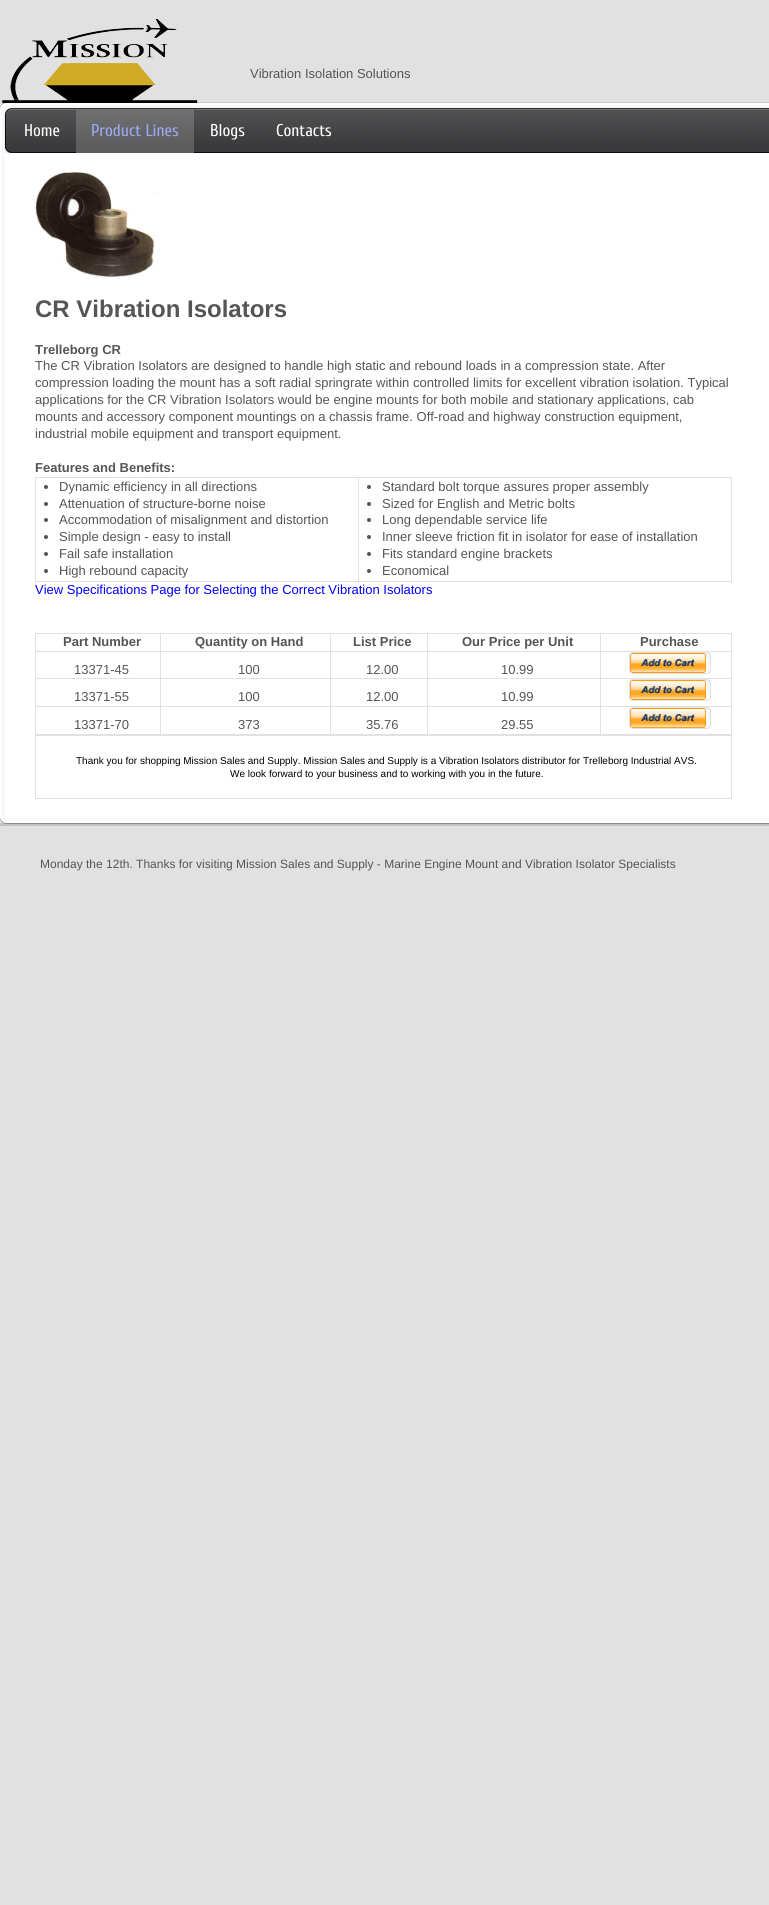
#include <cairo.h>
#include <math.h>
#include <stddef.h>

static cairo_t *ctx;

static void use_color(int r, int g, int b) {
    cairo_set_source_rgb(ctx, r / 255.0, g / 255.0, b / 255.0);
}

static void round_rect(double x, double y, double w, double h, double r) {
    cairo_new_sub_path(ctx);
    cairo_arc(ctx, x + w - r, y + h - r, r, 0, M_PI / 2);
    cairo_arc(ctx, x + r, y + h - r, r, M_PI / 2, M_PI);
    cairo_arc(ctx, x + r, y + r, r, M_PI, 1.5 * M_PI);
    cairo_arc(ctx, x + w - r, y + r, r, 1.5 * M_PI, 2 * M_PI);
    cairo_close_path(ctx);
}

static void shadow(double x, double y, double w, double h, double r, double blur, double alpha) {
    cairo_push_group_with_content(ctx, CAIRO_CONTENT_ALPHA);
    cairo_set_operator(ctx, CAIRO_OPERATOR_SOURCE);
    for (int i = 15; i >= -15 && fmin(w, h) + blur * i / 3 > 0; i -= 2) {
        double e = blur * i / 6;
        cairo_set_source_rgba(ctx, 0, 0, 0, alpha * erfc((i - 1) / 8.5) / 2);
        round_rect(x - e, y - e, w + 2 * e, h + 2 * e, fmax(0, fmin(r + e + blur * .6, fmin(w, h) / 2 + e)));
        cairo_fill(ctx);
    }
    cairo_pattern_t *soft = cairo_pop_group(ctx);
    cairo_mask(ctx, soft);
    cairo_pattern_destroy(soft);
}

static void picture(const char *path, double x, double y, double w, double h) {
    cairo_surface_t *image = cairo_image_surface_create_from_png(path);
    cairo_save(ctx);
    cairo_set_source_surface(ctx, image, x, y);
    cairo_rectangle(ctx, x, y, w, h);
    cairo_fill(ctx);
    cairo_restore(ctx);
    cairo_surface_destroy(image);
}

int main(void) {
    cairo_surface_t *surface = cairo_image_surface_create(CAIRO_FORMAT_RGB24, 769, 1905);
    ctx = cairo_create(surface);
    cairo_font_options_t *options = cairo_font_options_create();
    cairo_font_options_set_hint_metrics(options, CAIRO_HINT_METRICS_OFF);
    cairo_font_options_set_hint_style(options, CAIRO_HINT_STYLE_NONE);
    cairo_set_font_options(ctx, options);
    cairo_set_miter_limit(ctx, 4);
    use_color(225, 225, 225);
    cairo_paint(ctx);
    picture("img1.png", 2, 19, 196, 85);
    cairo_select_font_face(ctx, "Liberation Sans", CAIRO_FONT_SLANT_NORMAL, CAIRO_FONT_WEIGHT_NORMAL);
    cairo_set_font_size(ctx, 13);
    use_color(85, 85, 85);
    cairo_move_to(ctx, 250, 78);
    cairo_show_text(ctx, "Vibration Isolation Solutions");
    use_color(196, 196, 196);
    cairo_rectangle(ctx, 0, 823, 769, 3);
    cairo_fill(ctx);
    use_color(0, 0, 2);
    shadow(0, 104, 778, 720, 7, 0.5, 0.1);
    cairo_set_source_rgba(ctx, 0, 0, 0.008, 0.15);
    cairo_new_path(ctx);
    cairo_move_to(ctx, 0, 816);
    cairo_line_to(ctx, 0, 817);
    cairo_curve_to(ctx, 0, 821, 3, 824, 7, 824);
    cairo_line_to(ctx, 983, 824);
    cairo_curve_to(ctx, 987, 824, 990, 821, 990, 817);
    cairo_line_to(ctx, 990, 816);
    cairo_curve_to(ctx, 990, 820, 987, 823, 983, 823);
    cairo_line_to(ctx, 7, 823);
    cairo_curve_to(ctx, 3, 823, 0, 820, 0, 816);
    cairo_close_path(ctx);
    cairo_fill(ctx);
    round_rect(-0.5, 102.5, 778, 721, 7.5);
    cairo_set_source_rgba(ctx, 0, 0, 0.008, 0.1);
    cairo_set_line_width(ctx, 1);
    cairo_stroke(ctx);
    use_color(247, 247, 249);
    round_rect(1, 104, 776, 718, 6);
    cairo_fill_preserve(ctx);
    use_color(255, 255, 255);
    cairo_set_line_width(ctx, 2);
    cairo_stroke(ctx);
    use_color(0, 0, 2);
    shadow(5, 109, 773, 45, 7, 0.5, 0.2);
    picture("img2.png", 5, 109, 764, 44);
    use_color(115, 115, 117);
    cairo_new_path(ctx);
    cairo_move_to(ctx, 12, 110);
    cairo_line_to(ctx, 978, 110);
    cairo_curve_to(ctx, 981, 110, 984, 113, 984, 116);
    cairo_line_to(ctx, 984, 115);
    cairo_curve_to(ctx, 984, 112, 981, 109, 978, 109);
    cairo_line_to(ctx, 12, 109);
    cairo_curve_to(ctx, 9, 109, 6, 112, 6, 115);
    cairo_line_to(ctx, 6, 116);
    cairo_curve_to(ctx, 6, 113, 9, 110, 12, 110);
    cairo_close_path(ctx);
    cairo_fill(ctx);
    round_rect(5.5, 108.5, 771, 44, 6.5);
    cairo_set_source_rgba(ctx, 0, 0, 0.008, 0.8);
    cairo_set_line_width(ctx, 1);
    cairo_stroke(ctx);
    cairo_select_font_face(ctx, "Cuprum", CAIRO_FONT_SLANT_NORMAL, CAIRO_FONT_WEIGHT_NORMAL);
    cairo_set_font_size(ctx, 17);
    use_color(255, 255, 255);
    cairo_move_to(ctx, 24, 136);
    cairo_show_text(ctx, "Home");
    picture("img3.png", 76, 110, 118, 43);
    use_color(156, 170, 243);
    cairo_move_to(ctx, 91, 136);
    cairo_show_text(ctx, "Product Lines");
    use_color(255, 255, 255);
    cairo_move_to(ctx, 210, 136);
    cairo_show_text(ctx, "Blogs");
    cairo_move_to(ctx, 276, 136);
    cairo_show_text(ctx, "Contacts");
    cairo_rectangle(ctx, 5, 153, 764, 665);
    cairo_fill(ctx);
    picture("img4.png", 35, 172, 120, 105);
    cairo_select_font_face(ctx, "Liberation Sans", CAIRO_FONT_SLANT_NORMAL, CAIRO_FONT_WEIGHT_BOLD);
    cairo_set_font_size(ctx, 24);
    use_color(85, 85, 85);
    cairo_move_to(ctx, 35, 317);
    cairo_show_text(ctx, "CR Vibration Isolators");
    cairo_set_font_size(ctx, 13);
    cairo_move_to(ctx, 35, 354);
    cairo_show_text(ctx, "Trelleborg CR");
    cairo_select_font_face(ctx, "Liberation Sans", CAIRO_FONT_SLANT_NORMAL, CAIRO_FONT_WEIGHT_NORMAL);
    cairo_move_to(ctx, 35, 370);
    cairo_show_text(ctx, "The CR Vibration Isolators are designed to handle high static and rebound loads in a compression state. After");
    cairo_move_to(ctx, 35, 387);
    cairo_show_text(ctx, "compression loading the mount has a soft radial springrate within controlled limits for excellent vibration isolation. Typical");
    cairo_move_to(ctx, 35, 404);
    cairo_show_text(ctx, "applications for the CR Vibration Isolators would be engine mounts for both mobile and stationary applications, cab");
    cairo_move_to(ctx, 35, 421);
    cairo_show_text(ctx, "mounts and accessory component mountings on a chassis frame. Off-road and highway construction equipment,");
    cairo_move_to(ctx, 35, 438);
    cairo_show_text(ctx, "industrial mobile equipment and transport equipment.");
    cairo_select_font_face(ctx, "Liberation Sans", CAIRO_FONT_SLANT_NORMAL, CAIRO_FONT_WEIGHT_BOLD);
    cairo_move_to(ctx, 35, 472);
    cairo_show_text(ctx, "Features and Benefits:");
    use_color(225, 225, 225);
    cairo_rectangle(ctx, 35, 477, 697, 1);
    cairo_fill(ctx);
    cairo_rectangle(ctx, 731, 477, 1, 105);
    cairo_fill(ctx);
    cairo_rectangle(ctx, 35, 581, 697, 1);
    cairo_fill(ctx);
    cairo_rectangle(ctx, 35, 477, 1, 105);
    cairo_fill(ctx);
    use_color(85, 85, 85);
    cairo_arc(ctx, 46, 487, 2, 0, 2 * M_PI);
    cairo_fill(ctx);
    cairo_select_font_face(ctx, "Liberation Sans", CAIRO_FONT_SLANT_NORMAL, CAIRO_FONT_WEIGHT_NORMAL);
    cairo_move_to(ctx, 59, 491);
    cairo_show_text(ctx, "Dynamic efficiency in all directions");
    cairo_new_path(ctx);
    cairo_arc(ctx, 46, 504, 2, 0, 2 * M_PI);
    cairo_fill(ctx);
    cairo_move_to(ctx, 59, 508);
    cairo_show_text(ctx, "Attenuation of structure-borne noise");
    cairo_new_path(ctx);
    cairo_arc(ctx, 46, 520, 2, 0, 2 * M_PI);
    cairo_fill(ctx);
    cairo_move_to(ctx, 59, 524);
    cairo_show_text(ctx, "Accommodation of misalignment and distortion");
    cairo_new_path(ctx);
    cairo_arc(ctx, 46, 537, 2, 0, 2 * M_PI);
    cairo_fill(ctx);
    cairo_move_to(ctx, 59, 541);
    cairo_show_text(ctx, "Simple design - easy to install");
    cairo_new_path(ctx);
    cairo_arc(ctx, 46, 554, 2, 0, 2 * M_PI);
    cairo_fill(ctx);
    cairo_move_to(ctx, 59, 558);
    cairo_show_text(ctx, "Fail safe installation");
    cairo_new_path(ctx);
    cairo_arc(ctx, 46, 571, 2, 0, 2 * M_PI);
    cairo_fill(ctx);
    cairo_move_to(ctx, 59, 575);
    cairo_show_text(ctx, "High rebound capacity");
    use_color(225, 225, 225);
    cairo_rectangle(ctx, 358, 477, 1, 105);
    cairo_fill(ctx);
    use_color(85, 85, 85);
    cairo_arc(ctx, 369, 487, 2, 0, 2 * M_PI);
    cairo_fill(ctx);
    cairo_move_to(ctx, 382, 491);
    cairo_show_text(ctx, "Standard bolt torque assures proper assembly");
    cairo_new_path(ctx);
    cairo_arc(ctx, 369, 504, 2, 0, 2 * M_PI);
    cairo_fill(ctx);
    cairo_move_to(ctx, 382, 508);
    cairo_show_text(ctx, "Sized for English and Metric bolts");
    cairo_new_path(ctx);
    cairo_arc(ctx, 369, 520, 2, 0, 2 * M_PI);
    cairo_fill(ctx);
    cairo_move_to(ctx, 382, 524);
    cairo_show_text(ctx, "Long dependable service life");
    cairo_new_path(ctx);
    cairo_arc(ctx, 369, 537, 2, 0, 2 * M_PI);
    cairo_fill(ctx);
    cairo_move_to(ctx, 382, 541);
    cairo_show_text(ctx, "Inner sleeve friction fit in isolator for ease of installation");
    cairo_new_path(ctx);
    cairo_arc(ctx, 369, 554, 2, 0, 2 * M_PI);
    cairo_fill(ctx);
    cairo_move_to(ctx, 382, 558);
    cairo_show_text(ctx, "Fits standard engine brackets");
    cairo_new_path(ctx);
    cairo_arc(ctx, 369, 571, 2, 0, 2 * M_PI);
    cairo_fill(ctx);
    cairo_move_to(ctx, 382, 575);
    cairo_show_text(ctx, "Economical");
    use_color(0, 0, 255);
    cairo_move_to(ctx, 35, 594);
    cairo_show_text(ctx, "View Specifications Page for Selecting the Correct Vibration Isolators");
    use_color(225, 225, 225);
    cairo_rectangle(ctx, 35, 633, 697, 1);
    cairo_fill(ctx);
    cairo_rectangle(ctx, 731, 633, 1, 102);
    cairo_fill(ctx);
    cairo_rectangle(ctx, 35, 734, 697, 2);
    cairo_fill(ctx);
    cairo_rectangle(ctx, 35, 633, 1, 102);
    cairo_fill(ctx);
    cairo_select_font_face(ctx, "Liberation Sans", CAIRO_FONT_SLANT_NORMAL, CAIRO_FONT_WEIGHT_BOLD);
    use_color(85, 85, 85);
    cairo_move_to(ctx, 63, 646);
    cairo_show_text(ctx, "Part Number");
    cairo_move_to(ctx, 195, 646);
    cairo_show_text(ctx, "Quantity on Hand");
    cairo_move_to(ctx, 353, 646);
    cairo_show_text(ctx, "List Price");
    cairo_move_to(ctx, 462, 646);
    cairo_show_text(ctx, "Our Price per Unit");
    cairo_move_to(ctx, 640, 646);
    cairo_show_text(ctx, "Purchase");
    use_color(225, 225, 225);
    cairo_rectangle(ctx, 35, 651, 697, 1);
    cairo_fill(ctx);
    cairo_select_font_face(ctx, "Liberation Sans", CAIRO_FONT_SLANT_NORMAL, CAIRO_FONT_WEIGHT_NORMAL);
    use_color(85, 85, 85);
    cairo_move_to(ctx, 74, 674);
    cairo_show_text(ctx, "13371-45");
    cairo_move_to(ctx, 238, 674);
    cairo_show_text(ctx, "100");
    cairo_move_to(ctx, 366, 674);
    cairo_show_text(ctx, "12.00");
    cairo_move_to(ctx, 501, 674);
    cairo_show_text(ctx, "10.99");
    picture("img5.png", 629, 653, 82, 21);
    round_rect(629.5, 652.5, 81, 21, 3.5);
    use_color(225, 225, 225);
    cairo_stroke(ctx);
    picture("img6.png", 630, 653, 76, 20);
    cairo_rectangle(ctx, 35, 678, 697, 1);
    cairo_fill(ctx);
    use_color(85, 85, 85);
    cairo_move_to(ctx, 74, 701);
    cairo_show_text(ctx, "13371-55");
    cairo_move_to(ctx, 238, 701);
    cairo_show_text(ctx, "100");
    cairo_move_to(ctx, 366, 701);
    cairo_show_text(ctx, "12.00");
    cairo_move_to(ctx, 501, 701);
    cairo_show_text(ctx, "10.99");
    picture("img5.png", 629, 680, 82, 21);
    round_rect(629.5, 679.5, 81, 21, 3.5);
    use_color(225, 225, 225);
    cairo_stroke(ctx);
    picture("img6.png", 630, 680, 76, 20);
    cairo_rectangle(ctx, 35, 706, 697, 1);
    cairo_fill(ctx);
    use_color(85, 85, 85);
    cairo_move_to(ctx, 74, 729);
    cairo_show_text(ctx, "13371-70");
    use_color(225, 225, 225);
    cairo_rectangle(ctx, 160, 633, 1, 102);
    cairo_fill(ctx);
    use_color(85, 85, 85);
    cairo_move_to(ctx, 238, 729);
    cairo_show_text(ctx, "373");
    use_color(225, 225, 225);
    cairo_rectangle(ctx, 330, 633, 1, 102);
    cairo_fill(ctx);
    use_color(85, 85, 85);
    cairo_move_to(ctx, 366, 729);
    cairo_show_text(ctx, "35.76");
    use_color(225, 225, 225);
    cairo_rectangle(ctx, 427, 633, 1, 102);
    cairo_fill(ctx);
    use_color(85, 85, 85);
    cairo_move_to(ctx, 501, 729);
    cairo_show_text(ctx, "29.55");
    use_color(225, 225, 225);
    cairo_rectangle(ctx, 600, 633, 1, 102);
    cairo_fill(ctx);
    picture("img5.png", 629, 708, 82, 21);
    round_rect(629.5, 707.5, 81, 21, 3.5);
    cairo_stroke(ctx);
    picture("img6.png", 630, 708, 76, 20);
    cairo_rectangle(ctx, 731, 735, 1, 64);
    cairo_fill(ctx);
    cairo_rectangle(ctx, 35, 798, 697, 1);
    cairo_fill(ctx);
    cairo_rectangle(ctx, 35, 735, 1, 64);
    cairo_fill(ctx);
    cairo_set_font_size(ctx, 10);
    use_color(0, 0, 0);
    cairo_move_to(ctx, 76, 764);
    cairo_show_text(ctx, "Thank you for shopping Mission Sales and Supply. Mission Sales and Supply is a Vibration Isolators distributor for Trelleborg Industrial AVS.");
    cairo_move_to(ctx, 230, 777);
    cairo_show_text(ctx, "We look forward to your business and to working with you in the future.");
    cairo_set_font_size(ctx, 12);
    use_color(85, 85, 85);
    cairo_move_to(ctx, 40, 868);
    cairo_show_text(ctx, "Monday the 12th. Thanks for visiting Mission Sales and Supply - Marine Engine Mount and Vibration Isolator Specialists");
    cairo_surface_write_to_png(surface, "result.png");
    cairo_font_options_destroy(options);
    cairo_destroy(ctx);
    cairo_surface_destroy(surface);
    return 0;
}
